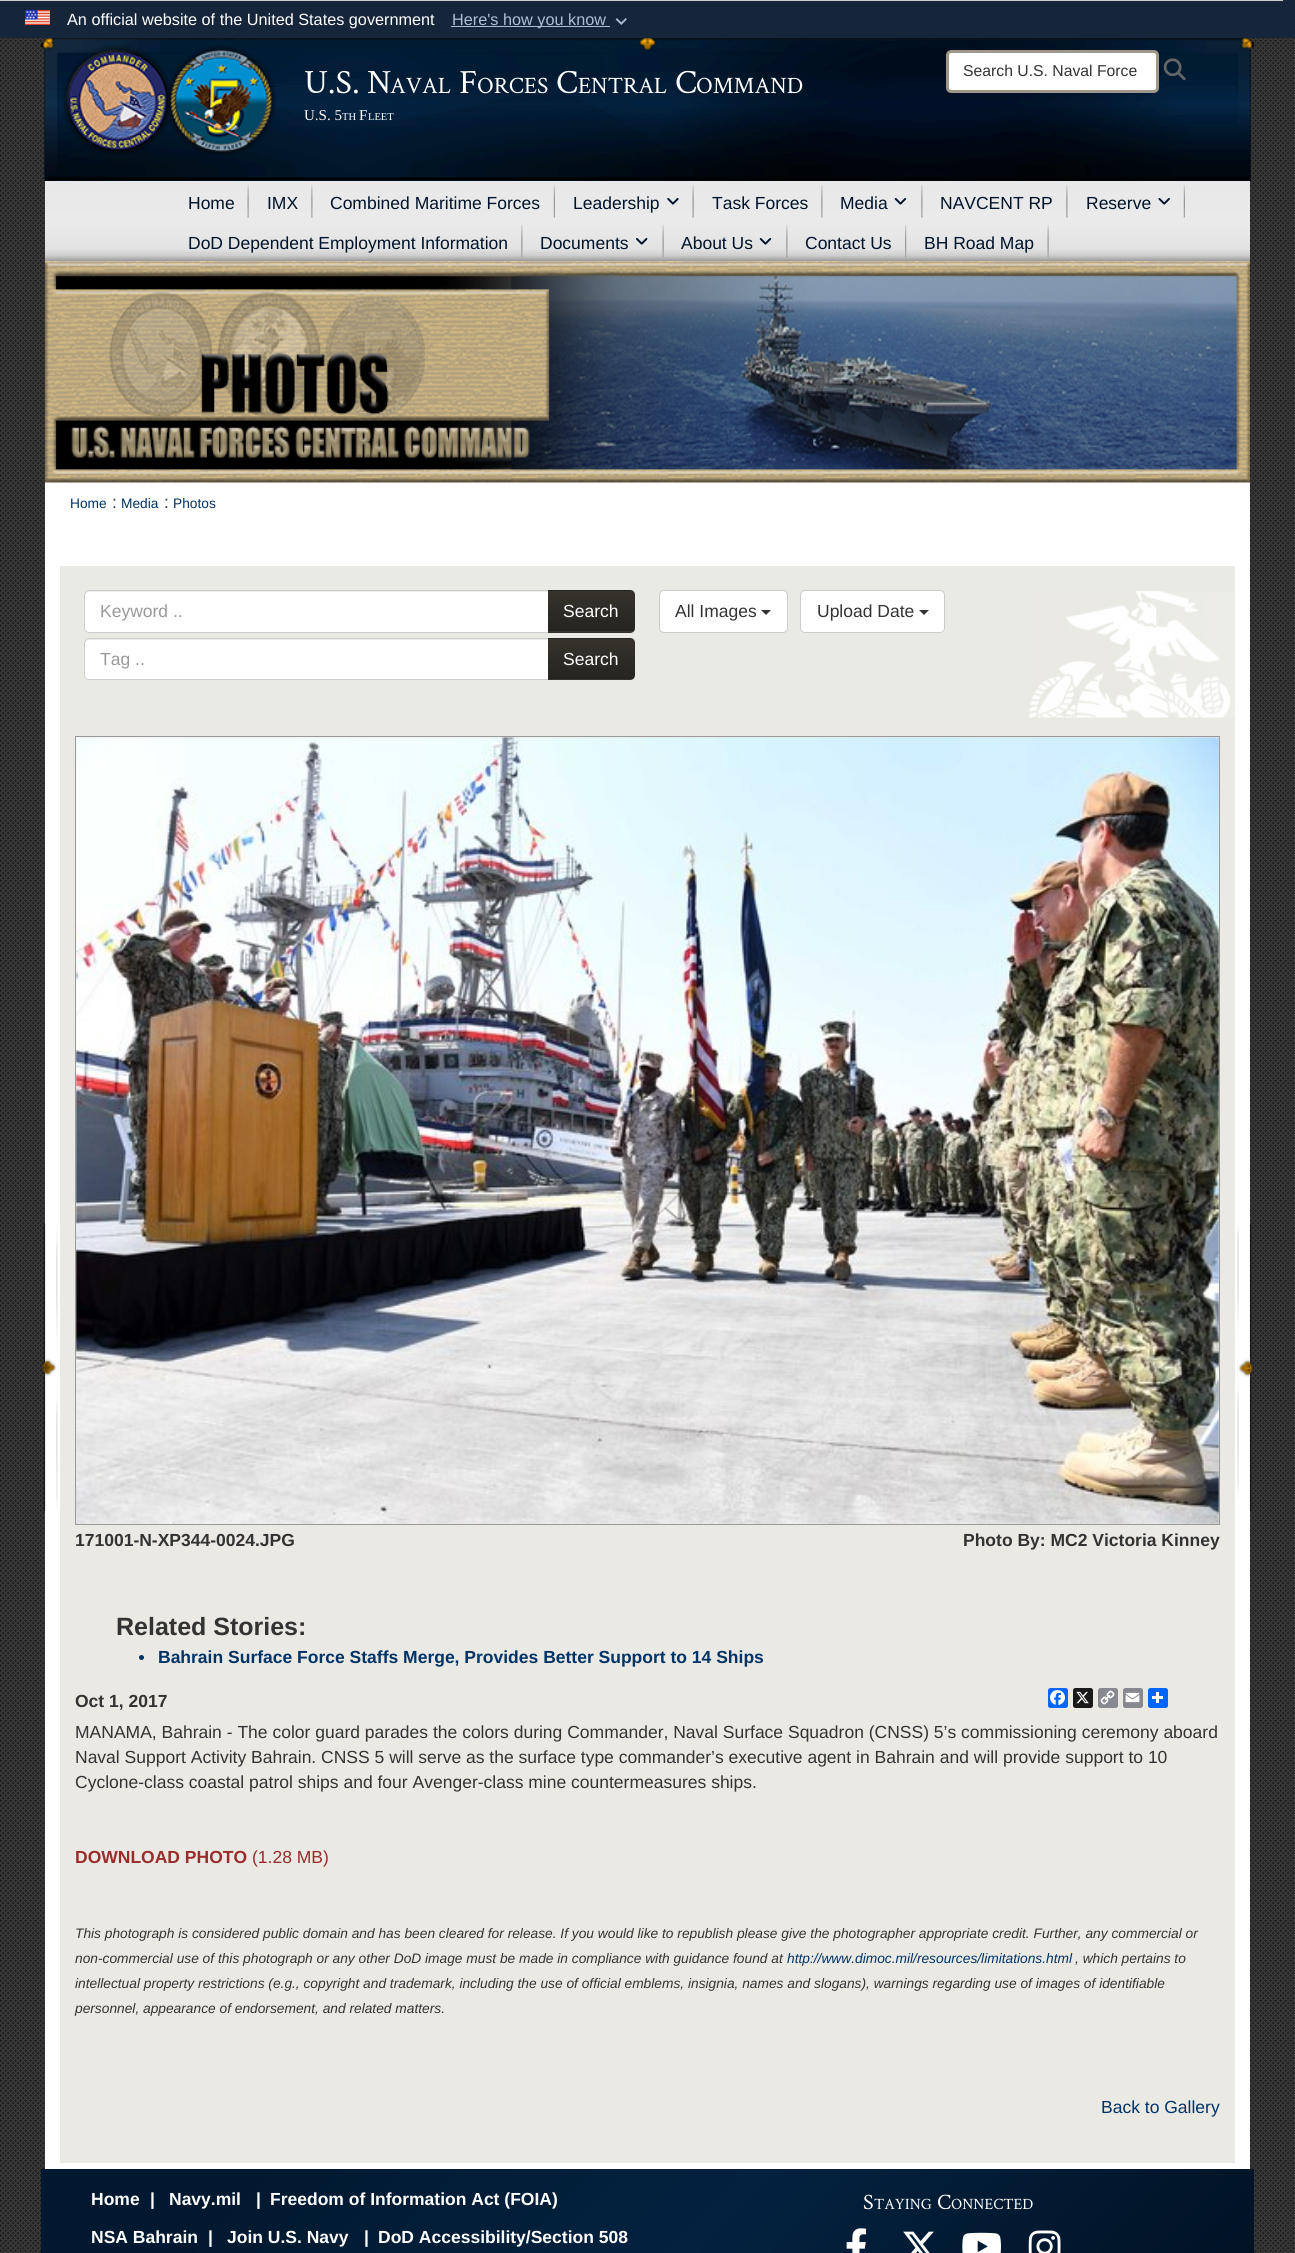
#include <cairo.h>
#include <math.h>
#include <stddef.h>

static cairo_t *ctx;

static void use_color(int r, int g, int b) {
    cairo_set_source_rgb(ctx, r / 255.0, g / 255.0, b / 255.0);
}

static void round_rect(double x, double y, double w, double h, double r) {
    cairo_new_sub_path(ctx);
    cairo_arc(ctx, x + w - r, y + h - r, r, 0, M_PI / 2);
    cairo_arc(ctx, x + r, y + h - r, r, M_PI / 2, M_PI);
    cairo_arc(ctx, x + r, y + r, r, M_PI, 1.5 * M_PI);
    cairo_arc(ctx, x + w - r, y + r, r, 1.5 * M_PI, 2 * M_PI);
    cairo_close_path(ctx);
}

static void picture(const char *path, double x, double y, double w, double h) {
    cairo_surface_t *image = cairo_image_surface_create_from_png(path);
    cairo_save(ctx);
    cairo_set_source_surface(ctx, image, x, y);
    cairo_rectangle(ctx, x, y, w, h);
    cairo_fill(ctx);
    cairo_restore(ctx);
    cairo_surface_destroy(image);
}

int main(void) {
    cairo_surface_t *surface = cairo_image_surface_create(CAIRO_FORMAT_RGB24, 1295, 2253);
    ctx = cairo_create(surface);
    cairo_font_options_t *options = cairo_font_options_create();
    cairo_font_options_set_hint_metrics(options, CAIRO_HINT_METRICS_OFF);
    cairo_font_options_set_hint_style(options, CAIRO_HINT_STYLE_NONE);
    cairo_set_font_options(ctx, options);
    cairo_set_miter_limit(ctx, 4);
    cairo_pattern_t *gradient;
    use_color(255, 255, 255);
    cairo_paint(ctx);
    picture("img1.png", 0, 38, 1295, 2215);
    use_color(21, 38, 59);
    cairo_rectangle(ctx, 0, 0, 1295, 38);
    cairo_fill(ctx);
    picture("img2.png", 25, 10, 25, 15);
    cairo_select_font_face(ctx, "Liberation Sans", CAIRO_FONT_SLANT_NORMAL, CAIRO_FONT_WEIGHT_NORMAL);
    cairo_set_font_size(ctx, 16.25);
    use_color(255, 255, 255);
    cairo_move_to(ctx, 67, 25);
    cairo_show_text(ctx, "An official website of the United States government");
    use_color(174, 191, 212);
    cairo_rectangle(ctx, 451, 26, 159, 1);
    cairo_fill(ctx);
    cairo_move_to(ctx, 452, 25);
    cairo_show_text(ctx, "Here's how you know");
    picture("img3.png", 615, 18, 12, 7);
    use_color(204, 204, 204);
    cairo_rectangle(ctx, 0, 0, 1283, 1);
    cairo_fill(ctx);
    picture("img4.png", 41, 38, 1213, 144);
    picture("img5.png", 62, 45, 215, 110);
    cairo_select_font_face(ctx, "Crimson Text", CAIRO_FONT_SLANT_NORMAL, CAIRO_FONT_WEIGHT_NORMAL);
    cairo_set_font_size(ctx, 34);
    use_color(255, 255, 255);
    cairo_move_to(ctx, 304, 93);
    cairo_show_text(ctx, "U.S. N");
    cairo_set_font_size(ctx, 23.5);
    cairo_move_to(ctx, 390, 93);
    cairo_show_text(ctx, "AVAL");
    cairo_set_font_size(ctx, 34);
    cairo_move_to(ctx, 459, 93);
    cairo_show_text(ctx, "F");
    cairo_set_font_size(ctx, 23.5);
    cairo_move_to(ctx, 477, 93);
    cairo_show_text(ctx, "ORCES");
    cairo_set_font_size(ctx, 34);
    cairo_move_to(ctx, 556, 93);
    cairo_show_text(ctx, "C");
    cairo_set_font_size(ctx, 23.5);
    cairo_move_to(ctx, 578, 93);
    cairo_show_text(ctx, "ENTRAL");
    cairo_set_font_size(ctx, 34);
    cairo_move_to(ctx, 675, 93);
    cairo_show_text(ctx, "C");
    cairo_set_font_size(ctx, 23.5);
    cairo_move_to(ctx, 696, 93);
    cairo_show_text(ctx, "OMMAND");
    cairo_select_font_face(ctx, "Liberation Serif", CAIRO_FONT_SLANT_NORMAL, CAIRO_FONT_WEIGHT_NORMAL);
    cairo_set_font_size(ctx, 15);
    cairo_move_to(ctx, 304, 120);
    cairo_show_text(ctx, "U.S. 5");
    cairo_set_font_size(ctx, 10.5);
    cairo_move_to(ctx, 342, 120);
    cairo_show_text(ctx, "TH");
    cairo_set_font_size(ctx, 15);
    cairo_move_to(ctx, 359, 120);
    cairo_show_text(ctx, "F");
    cairo_set_font_size(ctx, 10.5);
    cairo_move_to(ctx, 368, 120);
    cairo_show_text(ctx, "LEET");
    round_rect(947.5, 51.5, 210, 40, 3.5);
    cairo_fill_preserve(ctx);
    use_color(159, 151, 138);
    cairo_set_line_width(ctx, 3);
    cairo_stroke(ctx);
    cairo_select_font_face(ctx, "Liberation Sans", CAIRO_FONT_SLANT_NORMAL, CAIRO_FONT_WEIGHT_NORMAL);
    cairo_set_font_size(ctx, 15.75);
    use_color(51, 51, 51);
    cairo_move_to(ctx, 963, 76);
    cairo_show_text(ctx, "Search U.S. Naval Force");
    picture("img6.png", 1163, 58, 23, 23);
    gradient = cairo_pattern_create_linear(648, 181, 648, 261);
    cairo_pattern_add_color_stop_rgba(gradient, 0, 0.91, 0.91, 0.91, 1);
    cairo_pattern_add_color_stop_rgba(gradient, 0.55, 0.918, 0.918, 0.918, 1);
    cairo_pattern_add_color_stop_rgba(gradient, 0.85, 0.886, 0.886, 0.886, 1);
    cairo_pattern_add_color_stop_rgba(gradient, 0.93, 0.808, 0.808, 0.808, 1);
    cairo_pattern_add_color_stop_rgba(gradient, 1, 0.608, 0.608, 0.608, 1);
    cairo_set_source(ctx, gradient);
    cairo_pattern_destroy(gradient);
    cairo_rectangle(ctx, 45, 181, 1205, 80);
    cairo_fill(ctx);
    picture("img7.png", 247, 185, 2, 33);
    cairo_set_font_size(ctx, 17.5);
    use_color(0, 19, 43);
    cairo_move_to(ctx, 188, 209);
    cairo_show_text(ctx, "Home");
    picture("img8.png", 311, 185, 2, 33);
    cairo_move_to(ctx, 267, 209);
    cairo_show_text(ctx, "IMX");
    picture("img9.png", 553, 185, 2, 33);
    cairo_move_to(ctx, 330, 209);
    cairo_show_text(ctx, "Combined Maritime Forces");
    picture("img7.png", 692, 185, 2, 33);
    cairo_move_to(ctx, 573, 209);
    cairo_show_text(ctx, "Leadership");
    picture("img10.png", 667, 198, 12, 7);
    picture("img8.png", 821, 185, 2, 33);
    cairo_move_to(ctx, 712, 209);
    cairo_show_text(ctx, "Task Forces");
    picture("img8.png", 921, 185, 2, 33);
    cairo_move_to(ctx, 840, 209);
    cairo_show_text(ctx, "Media");
    picture("img11.png", 894, 198, 13, 7);
    picture("img8.png", 1066, 185, 2, 33);
    cairo_move_to(ctx, 940, 209);
    cairo_show_text(ctx, "NAVCENT RP");
    picture("img9.png", 1183, 185, 2, 33);
    cairo_move_to(ctx, 1086, 209);
    cairo_show_text(ctx, "Reserve");
    picture("img12.png", 1158, 198, 12, 7);
    picture("img13.png", 521, 225, 2, 33);
    cairo_move_to(ctx, 188, 249);
    cairo_show_text(ctx, "DoD Dependent Employment Information");
    picture("img14.png", 662, 225, 2, 33);
    cairo_move_to(ctx, 540, 249);
    cairo_show_text(ctx, "Documents");
    picture("img15.png", 636, 238, 12, 7);
    picture("img13.png", 786, 225, 2, 33);
    cairo_move_to(ctx, 681, 249);
    cairo_show_text(ctx, "About Us");
    picture("img16.png", 759, 238, 13, 7);
    picture("img17.png", 905, 225, 2, 33);
    cairo_move_to(ctx, 805, 249);
    cairo_show_text(ctx, "Contact Us");
    picture("img14.png", 1047, 225, 2, 33);
    cairo_move_to(ctx, 924, 249);
    cairo_show_text(ctx, "BH Road Map");
    use_color(255, 255, 255);
    cairo_rectangle(ctx, 45, 261, 1205, 1908);
    cairo_fill(ctx);
    picture("img18.png", 45, 261, 1205, 222);
    cairo_set_font_size(ctx, 13.75);
    use_color(0, 51, 102);
    cairo_move_to(ctx, 70, 508);
    cairo_show_text(ctx, "Home");
    cairo_set_font_size(ctx, 17.5);
    use_color(51, 51, 51);
    cairo_move_to(ctx, 112, 508);
    cairo_show_text(ctx, ":");
    cairo_set_font_size(ctx, 13.75);
    use_color(0, 51, 102);
    cairo_move_to(ctx, 121, 508);
    cairo_show_text(ctx, "Media");
    cairo_set_font_size(ctx, 17.5);
    use_color(51, 51, 51);
    cairo_move_to(ctx, 164, 508);
    cairo_show_text(ctx, ":");
    cairo_set_font_size(ctx, 13.75);
    use_color(0, 51, 102);
    cairo_move_to(ctx, 173, 508);
    cairo_show_text(ctx, "Photos");
    picture("img19.png", 41, 1223, 1213, 289);
    use_color(234, 234, 228);
    cairo_rectangle(ctx, 60, 566, 1175, 152);
    cairo_fill(ctx);
    picture("img20.png", 1028, 591, 207, 127);
    use_color(255, 255, 255);
    cairo_new_path(ctx);
    cairo_move_to(ctx, 89, 590);
    cairo_line_to(ctx, 549, 590);
    cairo_line_to(ctx, 549, 633);
    cairo_line_to(ctx, 89, 633);
    cairo_curve_to(ctx, 86, 633, 84, 631, 84, 628);
    cairo_line_to(ctx, 84, 595);
    cairo_curve_to(ctx, 84, 592, 86, 590, 89, 590);
    cairo_close_path(ctx);
    cairo_fill(ctx);
    use_color(236, 236, 236);
    cairo_new_path(ctx);
    cairo_move_to(ctx, 89, 592);
    cairo_line_to(ctx, 548, 592);
    cairo_line_to(ctx, 548, 591);
    cairo_line_to(ctx, 89, 591);
    cairo_curve_to(ctx, 86, 591, 85, 593, 85, 596);
    cairo_curve_to(ctx, 85, 594, 87, 592, 89, 592);
    cairo_close_path(ctx);
    cairo_fill(ctx);
    cairo_new_path(ctx);
    cairo_move_to(ctx, 89, 590.5);
    cairo_line_to(ctx, 548.5, 590.5);
    cairo_line_to(ctx, 548.5, 632.5);
    cairo_line_to(ctx, 89, 632.5);
    cairo_curve_to(ctx, 86.5, 632.5, 84.5, 630.5, 84.5, 628);
    cairo_line_to(ctx, 84.5, 595);
    cairo_curve_to(ctx, 84.5, 592.5, 86.5, 590.5, 89, 590.5);
    cairo_close_path(ctx);
    use_color(204, 204, 204);
    cairo_set_line_width(ctx, 1);
    cairo_stroke(ctx);
    cairo_set_font_size(ctx, 17.5);
    use_color(153, 153, 153);
    cairo_move_to(ctx, 100, 617);
    cairo_show_text(ctx, "Keyword ..");
    cairo_save(ctx);
    cairo_new_path(ctx);
    cairo_move_to(ctx, 548, 590);
    cairo_line_to(ctx, 630, 590);
    cairo_curve_to(ctx, 633, 590, 635, 592, 635, 595);
    cairo_line_to(ctx, 635, 628);
    cairo_curve_to(ctx, 635, 631, 633, 633, 630, 633);
    cairo_line_to(ctx, 548, 633);
    cairo_close_path(ctx);
    cairo_clip(ctx);
    gradient = cairo_pattern_create_linear(591, 551, 591, 591);
    cairo_pattern_add_color_stop_rgba(gradient, 0, 0.212, 0.2, 0.173, 1);
    cairo_pattern_add_color_stop_rgba(gradient, 0.99, 0.145, 0.141, 0.125, 1);
    cairo_set_source(ctx, gradient);
    cairo_pattern_destroy(gradient);
    cairo_rectangle(ctx, 548, 590, 87, 1);
    cairo_fill(ctx);
    gradient = cairo_pattern_create_linear(591, 591, 591, 631);
    cairo_pattern_add_color_stop_rgba(gradient, 0, 0.212, 0.2, 0.173, 1);
    cairo_pattern_add_color_stop_rgba(gradient, 0.99, 0.145, 0.141, 0.125, 1);
    cairo_set_source(ctx, gradient);
    cairo_pattern_destroy(gradient);
    cairo_rectangle(ctx, 548, 591, 87, 40);
    cairo_fill(ctx);
    gradient = cairo_pattern_create_linear(591, 631, 591, 671);
    cairo_pattern_add_color_stop_rgba(gradient, 0, 0.212, 0.2, 0.173, 1);
    cairo_pattern_add_color_stop_rgba(gradient, 0.99, 0.145, 0.141, 0.125, 1);
    cairo_set_source(ctx, gradient);
    cairo_pattern_destroy(gradient);
    cairo_rectangle(ctx, 548, 631, 87, 2);
    cairo_fill(ctx);
    cairo_restore(ctx);
    use_color(255, 255, 255);
    cairo_move_to(ctx, 563, 617);
    cairo_show_text(ctx, "Search");
    cairo_new_path(ctx);
    cairo_move_to(ctx, 89, 638);
    cairo_line_to(ctx, 549, 638);
    cairo_line_to(ctx, 549, 680);
    cairo_line_to(ctx, 89, 680);
    cairo_curve_to(ctx, 86, 680, 84, 678, 84, 675);
    cairo_line_to(ctx, 84, 643);
    cairo_curve_to(ctx, 84, 640, 86, 638, 89, 638);
    cairo_close_path(ctx);
    cairo_fill(ctx);
    use_color(236, 236, 236);
    cairo_new_path(ctx);
    cairo_move_to(ctx, 89, 640);
    cairo_line_to(ctx, 548, 640);
    cairo_line_to(ctx, 548, 639);
    cairo_line_to(ctx, 89, 639);
    cairo_curve_to(ctx, 86, 639, 85, 641, 85, 644);
    cairo_curve_to(ctx, 85, 642, 87, 640, 89, 640);
    cairo_close_path(ctx);
    cairo_fill(ctx);
    cairo_new_path(ctx);
    cairo_move_to(ctx, 89, 638.5);
    cairo_line_to(ctx, 548.5, 638.5);
    cairo_line_to(ctx, 548.5, 679.5);
    cairo_line_to(ctx, 89, 679.5);
    cairo_curve_to(ctx, 86.5, 679.5, 84.5, 677.5, 84.5, 675);
    cairo_line_to(ctx, 84.5, 643);
    cairo_curve_to(ctx, 84.5, 640.5, 86.5, 638.5, 89, 638.5);
    cairo_close_path(ctx);
    use_color(204, 204, 204);
    cairo_stroke(ctx);
    use_color(153, 153, 153);
    cairo_move_to(ctx, 100, 665);
    cairo_show_text(ctx, "Tag ..");
    cairo_save(ctx);
    cairo_new_path(ctx);
    cairo_move_to(ctx, 548, 638);
    cairo_line_to(ctx, 630, 638);
    cairo_curve_to(ctx, 633, 638, 635, 640, 635, 643);
    cairo_line_to(ctx, 635, 675);
    cairo_curve_to(ctx, 635, 678, 633, 680, 630, 680);
    cairo_line_to(ctx, 548, 680);
    cairo_close_path(ctx);
    cairo_clip(ctx);
    gradient = cairo_pattern_create_linear(591, 599, 591, 639);
    cairo_pattern_add_color_stop_rgba(gradient, 0, 0.212, 0.2, 0.173, 1);
    cairo_pattern_add_color_stop_rgba(gradient, 0.99, 0.145, 0.141, 0.125, 1);
    cairo_set_source(ctx, gradient);
    cairo_pattern_destroy(gradient);
    cairo_rectangle(ctx, 548, 638, 87, 1);
    cairo_fill(ctx);
    gradient = cairo_pattern_create_linear(591, 639, 591, 679);
    cairo_pattern_add_color_stop_rgba(gradient, 0, 0.212, 0.2, 0.173, 1);
    cairo_pattern_add_color_stop_rgba(gradient, 0.99, 0.145, 0.141, 0.125, 1);
    cairo_set_source(ctx, gradient);
    cairo_pattern_destroy(gradient);
    cairo_rectangle(ctx, 548, 639, 87, 40);
    cairo_fill(ctx);
    gradient = cairo_pattern_create_linear(591, 679, 591, 719);
    cairo_pattern_add_color_stop_rgba(gradient, 0, 0.212, 0.2, 0.173, 1);
    cairo_pattern_add_color_stop_rgba(gradient, 0.99, 0.145, 0.141, 0.125, 1);
    cairo_set_source(ctx, gradient);
    cairo_pattern_destroy(gradient);
    cairo_rectangle(ctx, 548, 679, 87, 1);
    cairo_fill(ctx);
    cairo_restore(ctx);
    use_color(255, 255, 255);
    cairo_move_to(ctx, 563, 665);
    cairo_show_text(ctx, "Search");
    round_rect(659.5, 590.5, 128, 42, 4.5);
    cairo_fill_preserve(ctx);
    use_color(204, 204, 204);
    cairo_stroke(ctx);
    use_color(51, 51, 51);
    cairo_move_to(ctx, 675, 617);
    cairo_show_text(ctx, "All Images");
    cairo_new_path(ctx);
    cairo_move_to(ctx, 761, 610);
    cairo_line_to(ctx, 771, 610);
    cairo_line_to(ctx, 766, 615);
    cairo_close_path(ctx);
    cairo_fill(ctx);
    use_color(255, 255, 255);
    round_rect(800.5, 590.5, 144, 42, 4.5);
    cairo_fill_preserve(ctx);
    use_color(204, 204, 204);
    cairo_stroke(ctx);
    use_color(51, 51, 51);
    cairo_move_to(ctx, 817, 617);
    cairo_show_text(ctx, "Upload Date");
    cairo_new_path(ctx);
    cairo_move_to(ctx, 919, 610);
    cairo_line_to(ctx, 929, 610);
    cairo_line_to(ctx, 924, 615);
    cairo_close_path(ctx);
    cairo_fill(ctx);
    use_color(234, 233, 228);
    cairo_rectangle(ctx, 60, 718, 1175, 1445);
    cairo_fill(ctx);
    cairo_rectangle(ctx, 75.5, 736.5, 1144, 788);
    use_color(153, 153, 153);
    cairo_stroke(ctx);
    picture("img21.png", 76, 737, 1143, 787);
    cairo_select_font_face(ctx, "Liberation Sans", CAIRO_FONT_SLANT_NORMAL, CAIRO_FONT_WEIGHT_BOLD);
    use_color(51, 51, 51);
    cairo_move_to(ctx, 75, 1546);
    cairo_show_text(ctx, "171001-N-XP344-0024.JPG");
    cairo_move_to(ctx, 963, 1546);
    cairo_show_text(ctx, "Photo By: MC2 Victoria Kinney");
    cairo_set_font_size(ctx, 25);
    cairo_move_to(ctx, 116, 1635);
    cairo_show_text(ctx, "Related Stories:");
    use_color(0, 51, 102);
    cairo_new_path(ctx);
    cairo_arc(ctx, 141.5, 1657.5, 2.5, 0, 2 * M_PI);
    cairo_fill(ctx);
    cairo_set_font_size(ctx, 17.5);
    cairo_move_to(ctx, 158, 1663);
    cairo_show_text(ctx, "Bahrain Surface Force Staffs Merge, Provides Better Support to 14 Ships");
    use_color(51, 51, 51);
    cairo_move_to(ctx, 75, 1707);
    cairo_show_text(ctx, "Oct 1, 2017");
    use_color(8, 102, 255);
    round_rect(1048, 1688, 20, 20, 2.5);
    cairo_fill(ctx);
    picture("img22.png", 1050, 1690, 15, 15);
    use_color(26, 26, 26);
    round_rect(1073, 1688, 20, 20, 2.5);
    cairo_fill(ctx);
    picture("img23.png", 1076, 1691, 13, 13);
    use_color(136, 137, 144);
    round_rect(1098, 1688, 20, 20, 2.5);
    cairo_fill(ctx);
    picture("img24.png", 1100, 1690, 15, 15);
    round_rect(1123, 1688, 20, 20, 2.5);
    cairo_fill(ctx);
    picture("img25.png", 1125, 1692, 15, 11);
    use_color(1, 102, 255);
    round_rect(1148, 1688, 20, 20, 2.5);
    cairo_fill(ctx);
    use_color(255, 255, 255);
    cairo_rectangle(ctx, 1156, 1692, 3, 11);
    cairo_fill(ctx);
    cairo_rectangle(ctx, 1152, 1696, 11, 3);
    cairo_fill(ctx);
    cairo_select_font_face(ctx, "Liberation Sans", CAIRO_FONT_SLANT_NORMAL, CAIRO_FONT_WEIGHT_NORMAL);
    use_color(51, 51, 51);
    cairo_move_to(ctx, 75, 1738);
    cairo_show_text(ctx, "MANAMA, Bahrain - The color guard parades the colors during Commander, Naval Surface Squadron (CNSS) 5’s commissioning ceremony aboard");
    cairo_move_to(ctx, 75, 1763);
    cairo_show_text(ctx, "Naval Support Activity Bahrain. CNSS 5 will serve as the surface type commander’s executive agent in Bahrain and will provide support to 10");
    cairo_move_to(ctx, 75, 1788);
    cairo_show_text(ctx, "Cyclone-class coastal patrol ships and four Avenger-class mine countermeasures ships.");
    cairo_select_font_face(ctx, "Liberation Sans", CAIRO_FONT_SLANT_NORMAL, CAIRO_FONT_WEIGHT_BOLD);
    use_color(154, 45, 44);
    cairo_move_to(ctx, 75, 1863);
    cairo_show_text(ctx, "DOWNLOAD PHOTO");
    cairo_select_font_face(ctx, "Liberation Sans", CAIRO_FONT_SLANT_NORMAL, CAIRO_FONT_WEIGHT_NORMAL);
    cairo_move_to(ctx, 252, 1863);
    cairo_show_text(ctx, "(1.28 MB)");
    cairo_select_font_face(ctx, "Liberation Sans", CAIRO_FONT_SLANT_ITALIC, CAIRO_FONT_WEIGHT_NORMAL);
    cairo_set_font_size(ctx, 13.75);
    use_color(51, 51, 51);
    cairo_move_to(ctx, 75, 1938);
    cairo_show_text(ctx, "This photograph is considered public domain and has been cleared for release. If you would like to republish please give the photographer appropriate credit. Further, any commercial or");
    cairo_move_to(ctx, 75, 1963);
    cairo_show_text(ctx, "non-commercial use of this photograph or any other DoD image must be made in compliance with guidance found at");
    use_color(0, 51, 102);
    cairo_move_to(ctx, 787, 1963);
    cairo_show_text(ctx, "http://www.dimoc.mil/resources/limitations.html");
    use_color(51, 51, 51);
    cairo_move_to(ctx, 1075, 1963);
    cairo_show_text(ctx, ", which pertains to");
    cairo_move_to(ctx, 75, 1988);
    cairo_show_text(ctx, "intellectual property restrictions (e.g., copyright and trademark, including the use of official emblems, insignia, names and slogans), warnings regarding use of images of identifiable");
    cairo_move_to(ctx, 75, 2013);
    cairo_show_text(ctx, "personnel, appearance of endorsement, and related matters.");
    cairo_select_font_face(ctx, "Liberation Sans", CAIRO_FONT_SLANT_NORMAL, CAIRO_FONT_WEIGHT_NORMAL);
    cairo_set_font_size(ctx, 17.5);
    use_color(0, 51, 102);
    cairo_move_to(ctx, 1101, 2113);
    cairo_show_text(ctx, "Back to Gallery");
    gradient = cairo_pattern_create_linear(225, 1985, 1070, 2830);
    cairo_pattern_add_color_stop_rgba(gradient, 0, 0.004, 0.098, 0.188, 1);
    cairo_pattern_add_color_stop_rgba(gradient, 0.13, 0.004, 0.098, 0.188, 1);
    cairo_pattern_add_color_stop_rgba(gradient, 0.43, 0.012, 0.133, 0.251, 1);
    cairo_pattern_add_color_stop_rgba(gradient, 0.79, 0.004, 0.067, 0.133, 1);
    cairo_pattern_add_color_stop_rgba(gradient, 1, 0, 0.043, 0.086, 1);
    cairo_set_source(ctx, gradient);
    cairo_pattern_destroy(gradient);
    cairo_rectangle(ctx, 41, 2169, 1213, 84);
    cairo_fill(ctx);
    cairo_select_font_face(ctx, "Liberation Sans", CAIRO_FONT_SLANT_NORMAL, CAIRO_FONT_WEIGHT_BOLD);
    use_color(255, 255, 255);
    cairo_move_to(ctx, 91, 2205);
    cairo_show_text(ctx, "Home");
    cairo_move_to(ctx, 150, 2205);
    cairo_show_text(ctx, "|");
    cairo_move_to(ctx, 169, 2205);
    cairo_show_text(ctx, "Navy.mil");
    cairo_move_to(ctx, 256, 2205);
    cairo_show_text(ctx, "|");
    cairo_move_to(ctx, 270, 2205);
    cairo_show_text(ctx, "Freedom of Information Act (FOIA)");
    cairo_move_to(ctx, 91, 2243);
    cairo_show_text(ctx, "NSA Bahrain");
    cairo_move_to(ctx, 208, 2243);
    cairo_show_text(ctx, "|");
    cairo_move_to(ctx, 227, 2243);
    cairo_show_text(ctx, "Join U.S. Navy");
    cairo_move_to(ctx, 364, 2243);
    cairo_show_text(ctx, "|");
    cairo_move_to(ctx, 378, 2243);
    cairo_show_text(ctx, "DoD Accessibility/Section 508");
    cairo_select_font_face(ctx, "Crimson Text", CAIRO_FONT_SLANT_NORMAL, CAIRO_FONT_WEIGHT_NORMAL);
    cairo_set_font_size(ctx, 22);
    cairo_move_to(ctx, 863, 2209);
    cairo_show_text(ctx, "S");
    cairo_set_font_size(ctx, 15.75);
    cairo_move_to(ctx, 874, 2209);
    cairo_show_text(ctx, "TAYING");
    cairo_set_font_size(ctx, 22);
    cairo_move_to(ctx, 937, 2209);
    cairo_show_text(ctx, "C");
    cairo_set_font_size(ctx, 15.75);
    cairo_move_to(ctx, 951, 2209);
    cairo_show_text(ctx, "ONNECTED");
    picture("img26.png", 846, 2228, 21, 25);
    picture("img27.png", 903, 2231, 31, 22);
    picture("img28.png", 962, 2232, 39, 21);
    picture("img29.png", 1028, 2230, 33, 23);
    cairo_surface_write_to_png(surface, "result.png");
    cairo_font_options_destroy(options);
    cairo_destroy(ctx);
    cairo_surface_destroy(surface);
    return 0;
}
